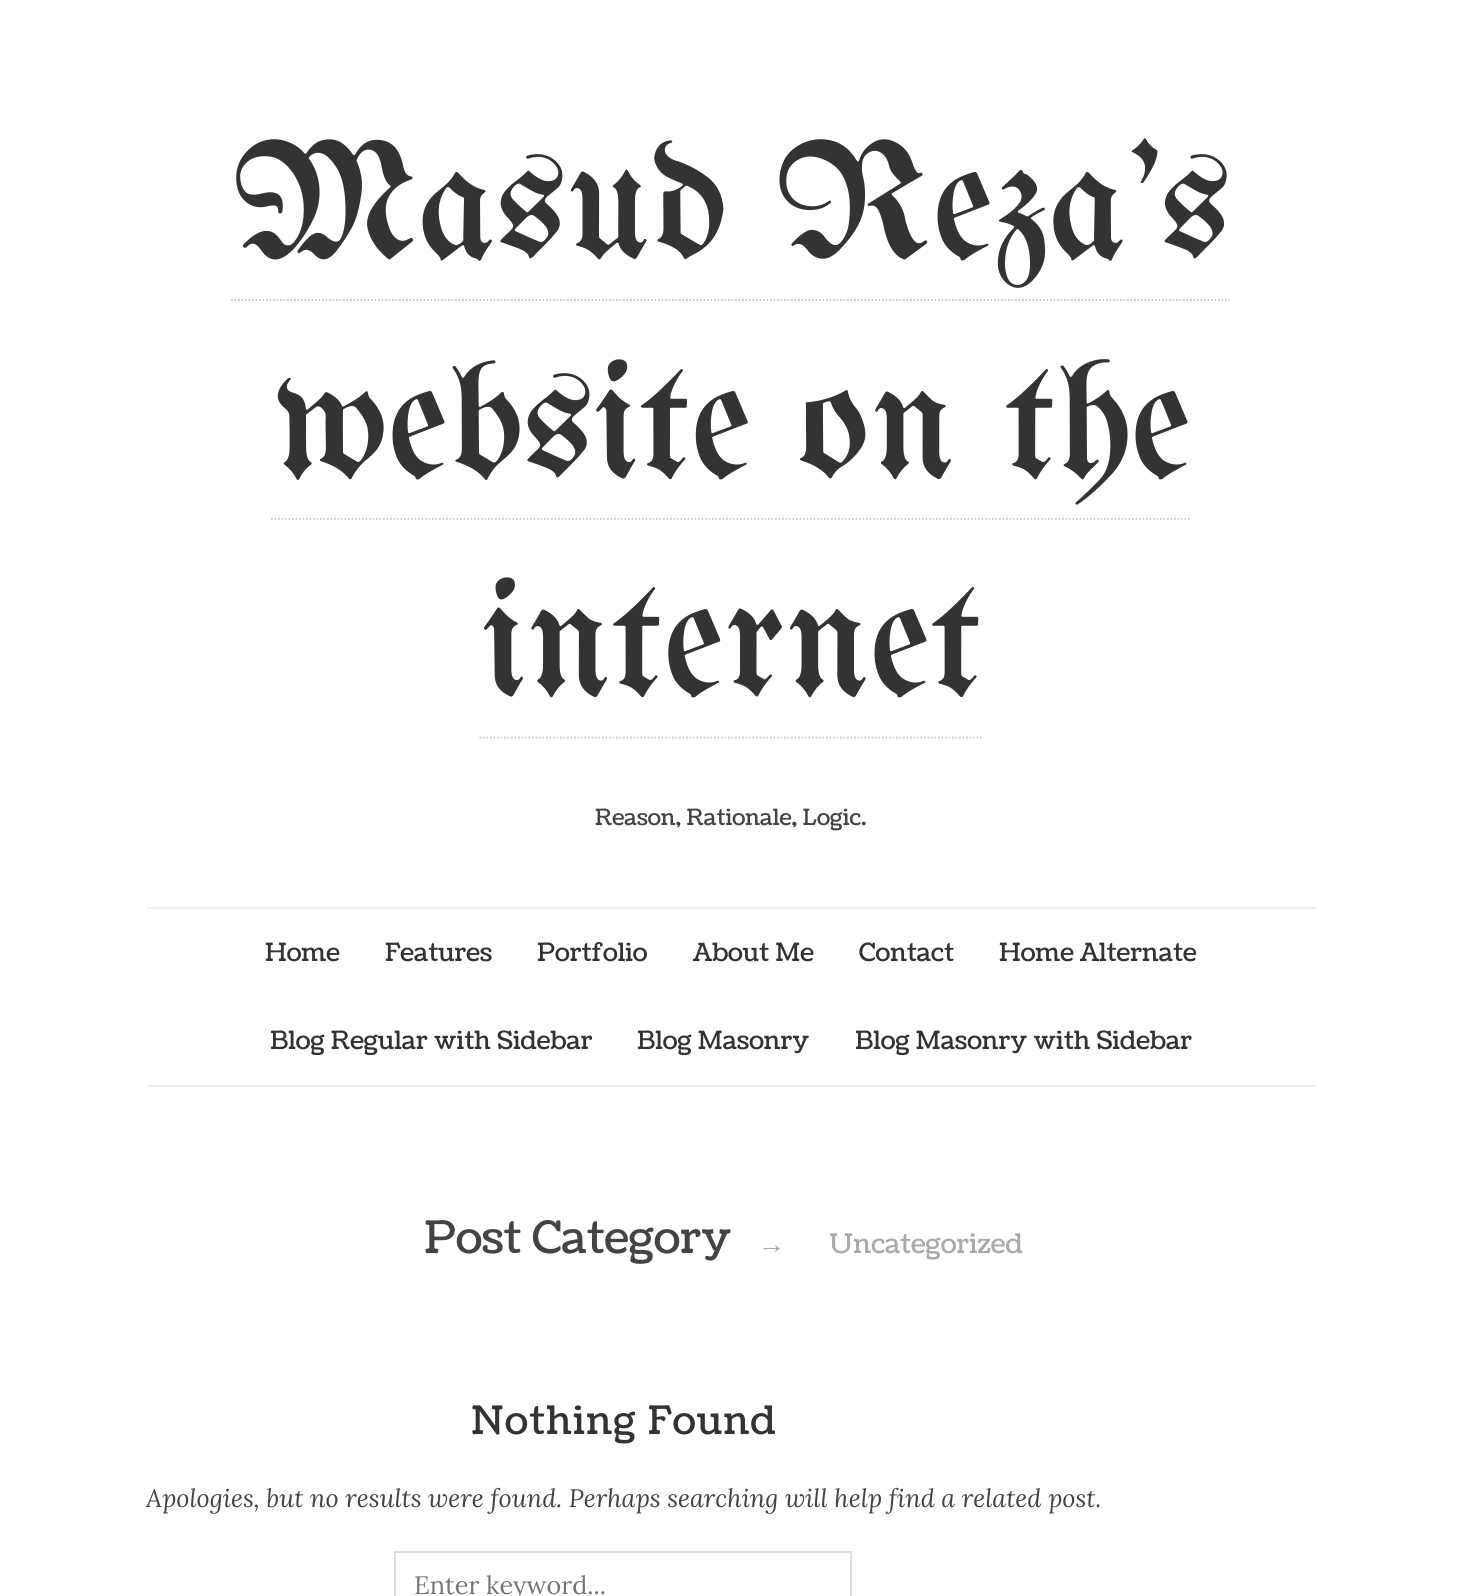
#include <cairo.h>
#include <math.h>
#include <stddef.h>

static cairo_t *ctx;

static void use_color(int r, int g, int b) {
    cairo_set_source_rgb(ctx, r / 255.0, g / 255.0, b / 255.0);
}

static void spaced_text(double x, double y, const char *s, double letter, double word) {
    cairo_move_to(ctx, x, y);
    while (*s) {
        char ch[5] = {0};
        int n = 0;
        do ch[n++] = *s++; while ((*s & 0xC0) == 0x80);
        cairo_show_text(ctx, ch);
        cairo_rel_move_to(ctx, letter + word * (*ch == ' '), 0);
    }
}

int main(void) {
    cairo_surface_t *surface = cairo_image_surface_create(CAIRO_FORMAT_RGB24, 1461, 1596);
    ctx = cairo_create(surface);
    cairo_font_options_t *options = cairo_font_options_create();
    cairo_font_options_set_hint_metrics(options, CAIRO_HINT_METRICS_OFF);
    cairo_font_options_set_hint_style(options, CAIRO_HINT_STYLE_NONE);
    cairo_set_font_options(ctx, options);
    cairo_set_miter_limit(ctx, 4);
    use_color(255, 255, 255);
    cairo_paint(ctx);
    cairo_select_font_face(ctx, "UnifrakturMaguntia", CAIRO_FONT_SLANT_NORMAL, CAIRO_FONT_WEIGHT_NORMAL);
    cairo_set_font_size(ctx, 168);
    use_color(51, 51, 51);
    cairo_move_to(ctx, 232, 257);
    cairo_show_text(ctx, "Masud Reza's");
    cairo_new_path(ctx);
    cairo_move_to(ctx, 231, 300);
    cairo_line_to(ctx, 1230, 300);
    use_color(204, 204, 204);
    cairo_set_line_width(ctx, 1.8);
    cairo_set_dash(ctx, (double[]){1.75, 1.75}, 2, 0);
    cairo_stroke(ctx);
    use_color(51, 51, 51);
    cairo_move_to(ctx, 271, 476);
    cairo_show_text(ctx, "website on the");
    cairo_new_path(ctx);
    cairo_move_to(ctx, 271, 519);
    cairo_line_to(ctx, 1190, 519);
    use_color(204, 204, 204);
    cairo_stroke(ctx);
    use_color(51, 51, 51);
    cairo_move_to(ctx, 480, 694);
    cairo_show_text(ctx, "internet");
    cairo_new_path(ctx);
    cairo_move_to(ctx, 479.5, 737.5);
    cairo_line_to(ctx, 982, 737.5);
    use_color(204, 204, 204);
    cairo_stroke(ctx);
    cairo_select_font_face(ctx, "Coustard", CAIRO_FONT_SLANT_NORMAL, CAIRO_FONT_WEIGHT_NORMAL);
    cairo_set_font_size(ctx, 22.4);
    use_color(68, 68, 68);
    cairo_move_to(ctx, 595, 825);
    cairo_show_text(ctx, "Reason, Rationale, Logic.");
    use_color(238, 238, 238);
    cairo_rectangle(ctx, 147, 907, 1169, 2);
    cairo_fill(ctx);
    cairo_rectangle(ctx, 147, 1085, 1169, 2);
    cairo_fill(ctx);
    cairo_set_font_size(ctx, 25.2);
    use_color(51, 51, 51);
    cairo_move_to(ctx, 265, 961);
    cairo_show_text(ctx, "Home");
    cairo_move_to(ctx, 385, 961);
    cairo_show_text(ctx, "Features");
    cairo_move_to(ctx, 537, 961);
    cairo_show_text(ctx, "Portfolio");
    cairo_move_to(ctx, 693, 961);
    cairo_show_text(ctx, "About Me");
    cairo_move_to(ctx, 859, 961);
    cairo_show_text(ctx, "Contact");
    cairo_move_to(ctx, 999, 961);
    cairo_show_text(ctx, "Home Alternate");
    cairo_move_to(ctx, 270, 1049);
    cairo_show_text(ctx, "Blog Regular with Sidebar");
    cairo_move_to(ctx, 637, 1049);
    cairo_show_text(ctx, "Blog Masonry");
    cairo_move_to(ctx, 855, 1049);
    cairo_show_text(ctx, "Blog Masonry with Sidebar");
    cairo_set_font_size(ctx, 44.75);
    use_color(68, 68, 68);
    cairo_move_to(ctx, 424, 1253);
    cairo_show_text(ctx, "Post Category");
    cairo_select_font_face(ctx, "Liberation Serif", CAIRO_FONT_SLANT_NORMAL, CAIRO_FONT_WEIGHT_NORMAL);
    cairo_set_font_size(ctx, 27);
    use_color(170, 170, 170);
    cairo_move_to(ctx, 758, 1253);
    cairo_show_text(ctx, "→");
    cairo_select_font_face(ctx, "Coustard", CAIRO_FONT_SLANT_NORMAL, CAIRO_FONT_WEIGHT_NORMAL);
    cairo_move_to(ctx, 829, 1253);
    cairo_show_text(ctx, "Uncategorized");
    cairo_set_font_size(ctx, 39.25);
    use_color(51, 51, 51);
    spaced_text(471, 1434, "Nothing Found", 1.25, 0);
    cairo_select_font_face(ctx, "Lora", CAIRO_FONT_SLANT_ITALIC, CAIRO_FONT_WEIGHT_NORMAL);
    cairo_set_font_size(ctx, 25.2);
    use_color(68, 68, 68);
    cairo_move_to(ctx, 146, 1507);
    cairo_show_text(ctx, "Apologies, but no results were found. Perhaps searching will help find a related post.");
    cairo_rectangle(ctx, 395, 1552, 456, 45);
    use_color(221, 221, 221);
    cairo_set_line_width(ctx, 2);
    cairo_set_dash(ctx, NULL, 0, 0);
    cairo_stroke(ctx);
    cairo_select_font_face(ctx, "Lora", CAIRO_FONT_SLANT_NORMAL, CAIRO_FONT_WEIGHT_NORMAL);
    use_color(117, 117, 117);
    cairo_move_to(ctx, 414, 1594);
    cairo_show_text(ctx, "Enter keyword...");
    cairo_surface_write_to_png(surface, "result.png");
    cairo_font_options_destroy(options);
    cairo_destroy(ctx);
    cairo_surface_destroy(surface);
    return 0;
}
